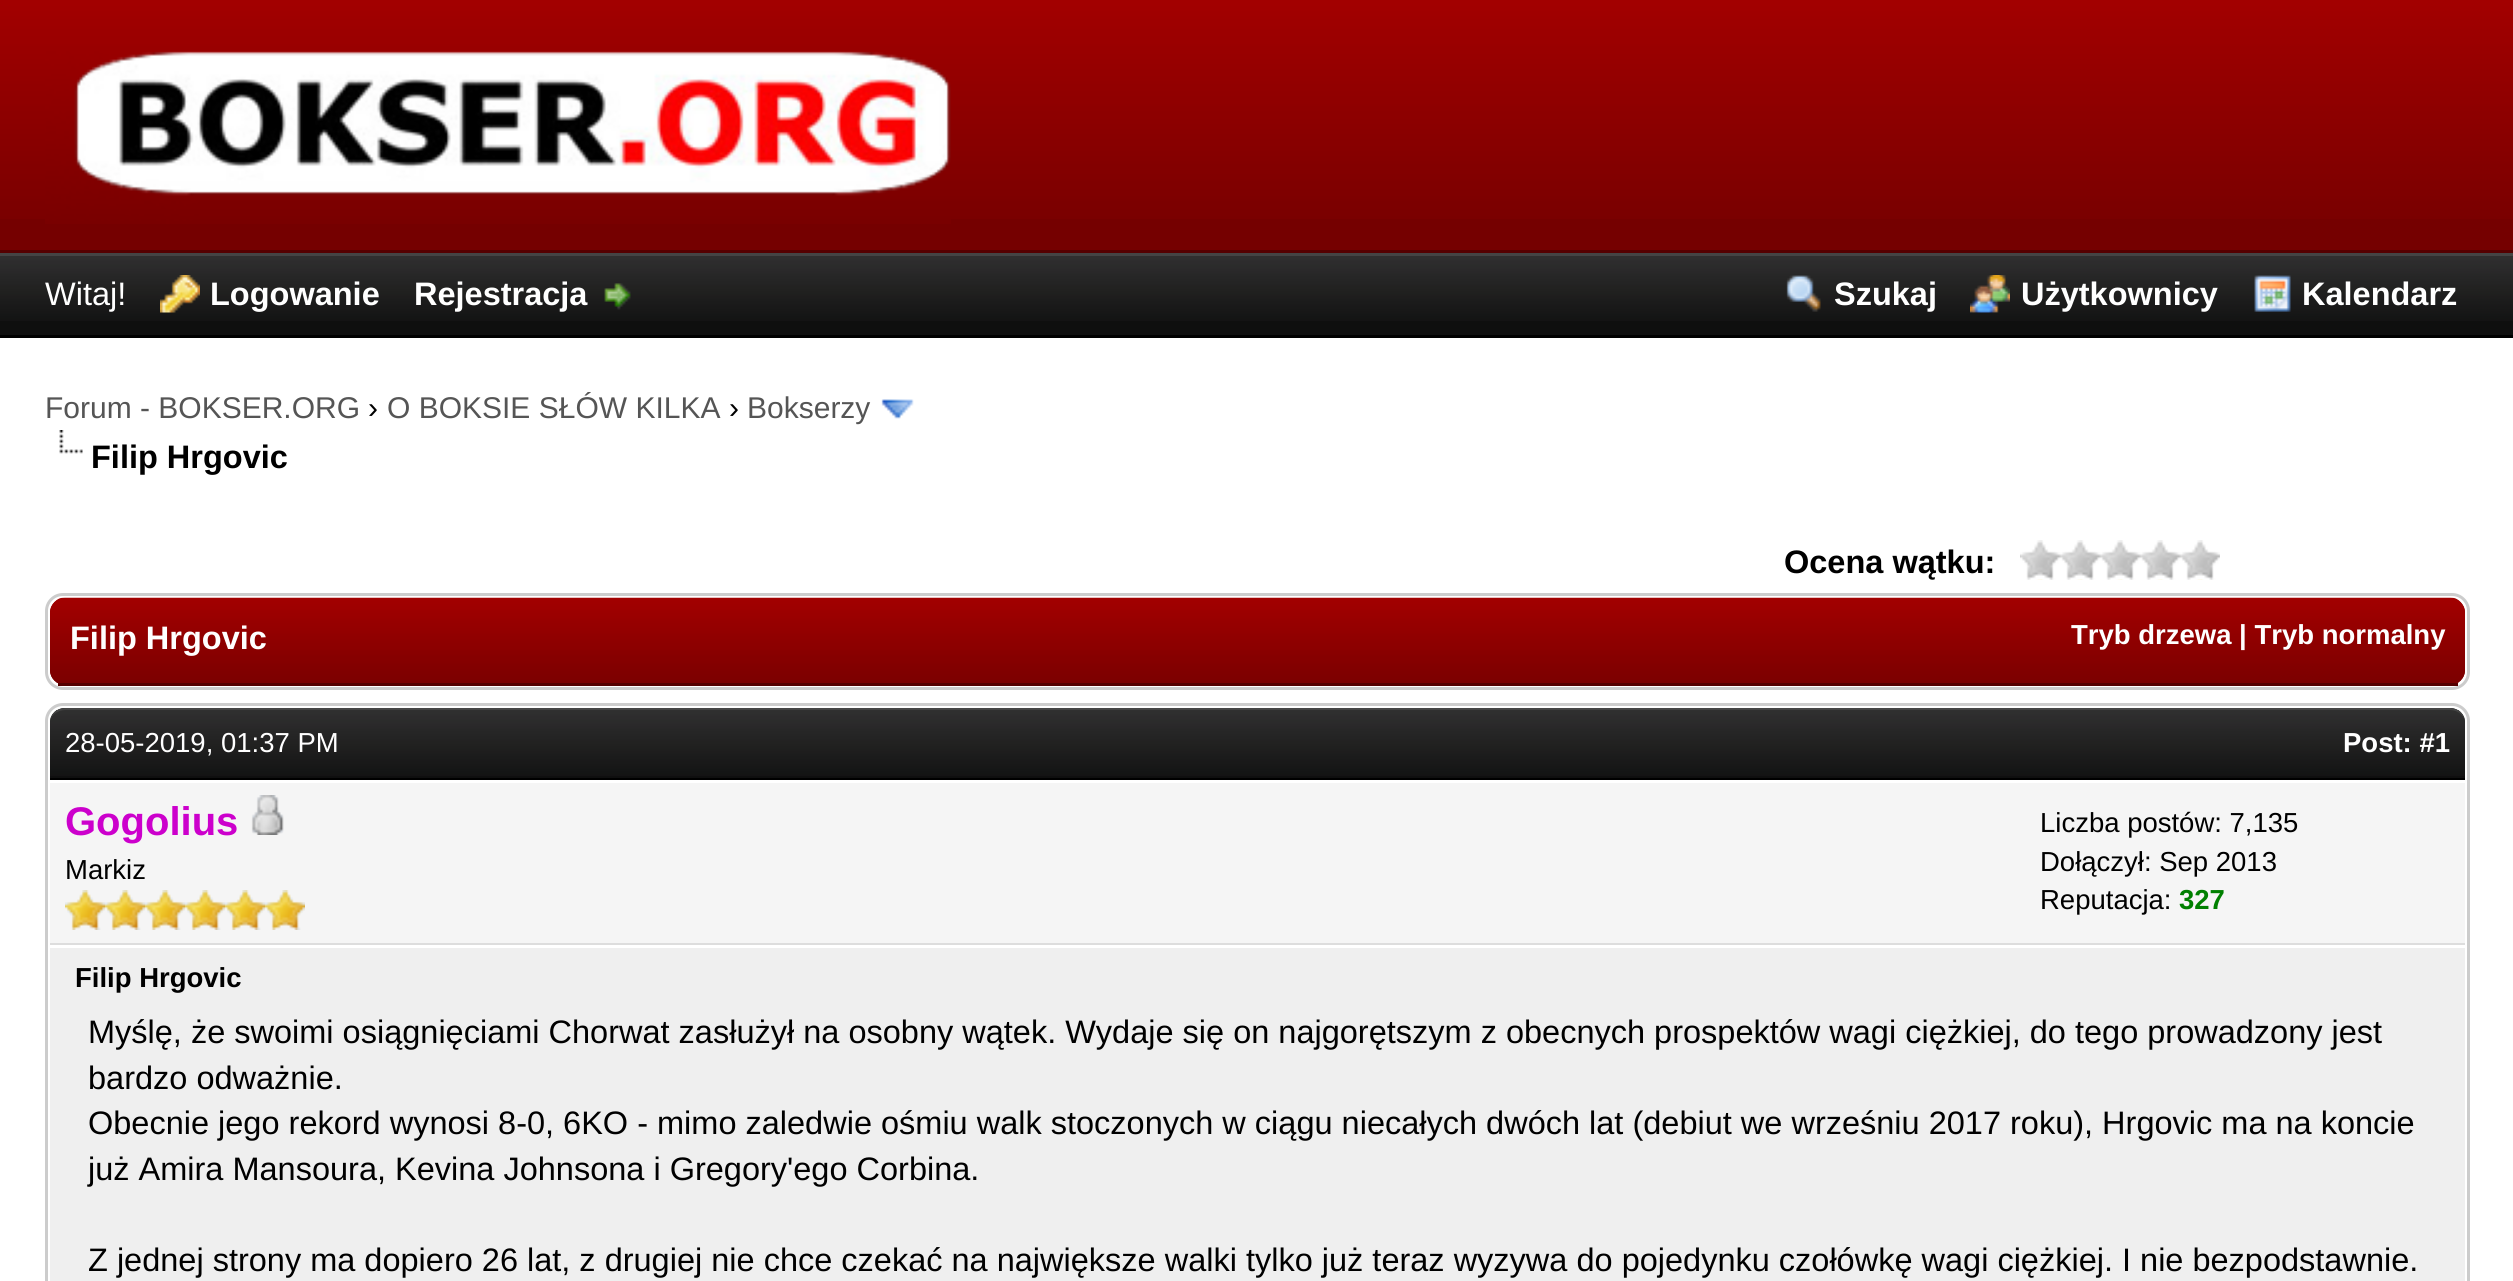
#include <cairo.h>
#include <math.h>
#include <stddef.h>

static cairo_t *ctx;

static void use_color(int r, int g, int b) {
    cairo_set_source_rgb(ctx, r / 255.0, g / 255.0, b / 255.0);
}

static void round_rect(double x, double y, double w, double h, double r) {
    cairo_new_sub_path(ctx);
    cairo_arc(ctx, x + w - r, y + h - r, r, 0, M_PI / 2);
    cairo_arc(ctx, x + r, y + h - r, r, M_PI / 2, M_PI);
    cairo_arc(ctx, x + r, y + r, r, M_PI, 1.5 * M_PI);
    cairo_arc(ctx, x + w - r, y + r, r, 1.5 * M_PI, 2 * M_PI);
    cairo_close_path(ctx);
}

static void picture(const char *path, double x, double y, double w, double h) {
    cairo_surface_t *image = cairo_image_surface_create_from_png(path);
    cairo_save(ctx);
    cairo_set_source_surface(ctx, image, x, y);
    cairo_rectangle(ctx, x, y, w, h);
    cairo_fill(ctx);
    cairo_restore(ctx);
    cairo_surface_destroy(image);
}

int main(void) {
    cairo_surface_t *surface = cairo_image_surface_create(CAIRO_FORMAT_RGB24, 2513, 1281);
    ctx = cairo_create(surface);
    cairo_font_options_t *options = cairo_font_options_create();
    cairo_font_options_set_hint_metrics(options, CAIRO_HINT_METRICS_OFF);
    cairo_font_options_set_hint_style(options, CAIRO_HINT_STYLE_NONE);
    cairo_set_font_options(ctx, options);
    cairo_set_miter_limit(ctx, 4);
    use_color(117, 0, 0);
    cairo_paint(ctx);
    picture("img1.png", 0, 0, 2513, 219);
    use_color(85, 0, 0);
    cairo_rectangle(ctx, 0, 250, 2513, 3);
    cairo_fill(ctx);
    picture("img2.png", 45, 51, 906, 173);
    use_color(15, 15, 15);
    cairo_rectangle(ctx, 0, 321, 2513, 14);
    cairo_fill(ctx);
    picture("img3.png", 0, 256, 2513, 65);
    use_color(68, 68, 68);
    cairo_rectangle(ctx, 0, 253, 2513, 3);
    cairo_fill(ctx);
    use_color(0, 0, 0);
    cairo_rectangle(ctx, 0, 335, 2513, 3);
    cairo_fill(ctx);
    cairo_select_font_face(ctx, "Liberation Sans", CAIRO_FONT_SLANT_NORMAL, CAIRO_FONT_WEIGHT_NORMAL);
    cairo_set_font_size(ctx, 32.5);
    use_color(255, 255, 255);
    cairo_move_to(ctx, 45, 305);
    cairo_show_text(ctx, "Witaj!");
    picture("img4.png", 160, 275, 40, 38);
    cairo_select_font_face(ctx, "Liberation Sans", CAIRO_FONT_SLANT_NORMAL, CAIRO_FONT_WEIGHT_BOLD);
    cairo_move_to(ctx, 210, 305);
    cairo_show_text(ctx, "Logowanie");
    cairo_move_to(ctx, 414, 305);
    cairo_show_text(ctx, "Rejestracja");
    picture("img5.png", 604, 283, 27, 27);
    picture("img6.png", 1786, 275, 35, 37);
    cairo_move_to(ctx, 1834, 305);
    cairo_show_text(ctx, "Szukaj");
    picture("img7.png", 1970, 275, 40, 38);
    cairo_move_to(ctx, 2021, 305);
    cairo_show_text(ctx, "Użytkownicy");
    picture("img8.png", 2254, 275, 37, 37);
    cairo_move_to(ctx, 2302, 305);
    cairo_show_text(ctx, "Kalendarz");
    cairo_rectangle(ctx, 0, 338, 2513, 943);
    cairo_fill(ctx);
    cairo_select_font_face(ctx, "Liberation Sans", CAIRO_FONT_SLANT_NORMAL, CAIRO_FONT_WEIGHT_NORMAL);
    cairo_set_font_size(ctx, 30);
    use_color(85, 85, 85);
    cairo_move_to(ctx, 45, 418);
    cairo_show_text(ctx, "Forum - BOKSER.ORG");
    use_color(0, 0, 0);
    cairo_move_to(ctx, 368, 418);
    cairo_show_text(ctx, "›");
    use_color(85, 85, 85);
    cairo_move_to(ctx, 387, 418);
    cairo_show_text(ctx, "O BOKSIE SŁÓW KILKA");
    use_color(0, 0, 0);
    cairo_move_to(ctx, 729, 418);
    cairo_show_text(ctx, "›");
    use_color(85, 85, 85);
    cairo_move_to(ctx, 747, 418);
    cairo_show_text(ctx, "Bokserzy");
    picture("img9.png", 881, 399, 33, 20);
    picture("img10.png", 59, 430, 24, 24);
    cairo_select_font_face(ctx, "Liberation Sans", CAIRO_FONT_SLANT_NORMAL, CAIRO_FONT_WEIGHT_BOLD);
    cairo_set_font_size(ctx, 32.5);
    use_color(0, 0, 0);
    cairo_move_to(ctx, 91, 468);
    cairo_show_text(ctx, "Filip Hrgovic");
    cairo_move_to(ctx, 1784, 573);
    cairo_show_text(ctx, "Ocena wątku:");
    picture("img11.png", 2020, 540, 200, 40);
    round_rect(46.5, 594.5, 2422, 94, 16.5);
    use_color(204, 204, 204);
    cairo_set_line_width(ctx, 3);
    cairo_stroke(ctx);
    use_color(117, 0, 0);
    round_rect(50, 598, 2415, 87, 15);
    cairo_fill(ctx);
    picture("img12.png", 50, 597, 2415, 86);
    use_color(85, 0, 0);
    cairo_rectangle(ctx, 58, 683, 2400, 3);
    cairo_fill(ctx);
    use_color(255, 255, 255);
    cairo_move_to(ctx, 70, 649);
    cairo_show_text(ctx, "Filip Hrgovic");
    cairo_set_font_size(ctx, 27.5);
    cairo_move_to(ctx, 2071, 644);
    cairo_show_text(ctx, "Tryb drzewa | Tryb normalny");
    round_rect(46.5, 704.5, 2422, 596, 16.5);
    use_color(204, 204, 204);
    cairo_stroke(ctx);
    use_color(15, 15, 15);
    cairo_new_path(ctx);
    cairo_move_to(ctx, 65, 708);
    cairo_line_to(ctx, 2450, 708);
    cairo_curve_to(ctx, 2458.5, 708, 2465, 714.5, 2465, 723);
    cairo_line_to(ctx, 2465, 780);
    cairo_line_to(ctx, 50, 780);
    cairo_line_to(ctx, 50, 723);
    cairo_curve_to(ctx, 50, 714.5, 56.5, 708, 65, 708);
    cairo_close_path(ctx);
    cairo_fill(ctx);
    picture("img13.png", 50, 710, 2415, 66);
    use_color(68, 68, 68);
    cairo_new_path(ctx);
    cairo_move_to(ctx, 65, 708);
    cairo_curve_to(ctx, 57, 708, 50, 714, 50, 722);
    cairo_curve_to(ctx, 50, 716, 57, 710, 65, 710);
    cairo_line_to(ctx, 2450, 710);
    cairo_curve_to(ctx, 2458, 710, 2465, 716, 2465, 722);
    cairo_curve_to(ctx, 2465, 714, 2458, 708, 2450, 708);
    cairo_close_path(ctx);
    cairo_fill(ctx);
    use_color(0, 0, 0);
    cairo_rectangle(ctx, 50, 778, 2415, 2);
    cairo_fill(ctx);
    cairo_select_font_face(ctx, "Liberation Sans", CAIRO_FONT_SLANT_NORMAL, CAIRO_FONT_WEIGHT_NORMAL);
    use_color(255, 255, 255);
    cairo_move_to(ctx, 65, 752);
    cairo_show_text(ctx, "28-05-2019, 01:37 PM");
    cairo_select_font_face(ctx, "Liberation Sans", CAIRO_FONT_SLANT_NORMAL, CAIRO_FONT_WEIGHT_BOLD);
    cairo_move_to(ctx, 2343, 752);
    cairo_show_text(ctx, "Post: #1");
    use_color(245, 245, 245);
    cairo_rectangle(ctx, 50, 783, 2415, 160);
    cairo_fill(ctx);
    use_color(221, 221, 221);
    cairo_rectangle(ctx, 50, 943, 2415, 2);
    cairo_fill(ctx);
    cairo_set_font_size(ctx, 40);
    use_color(204, 0, 204);
    cairo_move_to(ctx, 65, 835);
    cairo_show_text(ctx, "Gogolius");
    picture("img14.png", 251, 795, 33, 40);
    cairo_select_font_face(ctx, "Liberation Sans", CAIRO_FONT_SLANT_NORMAL, CAIRO_FONT_WEIGHT_NORMAL);
    cairo_set_font_size(ctx, 27.5);
    use_color(0, 0, 0);
    cairo_move_to(ctx, 65, 879);
    cairo_show_text(ctx, "Markiz");
    picture("img15.png", 65, 890, 40, 40);
    picture("img15.png", 105, 890, 40, 40);
    picture("img15.png", 145, 890, 40, 40);
    picture("img15.png", 185, 890, 40, 40);
    picture("img15.png", 225, 890, 40, 40);
    picture("img16.png", 265, 890, 40, 40);
    cairo_move_to(ctx, 2040, 832);
    cairo_show_text(ctx, "Liczba postów: 7,135");
    cairo_move_to(ctx, 2040, 871);
    cairo_show_text(ctx, "Dołączył: Sep 2013");
    cairo_move_to(ctx, 2040, 909);
    cairo_show_text(ctx, "Reputacja:");
    cairo_select_font_face(ctx, "Liberation Sans", CAIRO_FONT_SLANT_NORMAL, CAIRO_FONT_WEIGHT_BOLD);
    use_color(0, 128, 0);
    cairo_move_to(ctx, 2179, 909);
    cairo_show_text(ctx, "327");
    use_color(239, 239, 239);
    cairo_rectangle(ctx, 50, 948, 2415, 333);
    cairo_fill(ctx);
    use_color(0, 0, 0);
    cairo_move_to(ctx, 75, 987);
    cairo_show_text(ctx, "Filip Hrgovic");
    cairo_select_font_face(ctx, "Liberation Sans", CAIRO_FONT_SLANT_NORMAL, CAIRO_FONT_WEIGHT_NORMAL);
    cairo_set_font_size(ctx, 32.5);
    cairo_move_to(ctx, 88, 1043);
    cairo_show_text(ctx, "Myślę, że swoimi osiągnięciami Chorwat zasłużył na osobny wątek. Wydaje się on najgorętszym z obecnych prospektów wagi ciężkiej, do tego prowadzony jest");
    cairo_move_to(ctx, 88, 1089);
    cairo_show_text(ctx, "bardzo odważnie.");
    cairo_move_to(ctx, 88, 1134);
    cairo_show_text(ctx, "Obecnie jego rekord wynosi 8-0, 6KO - mimo zaledwie ośmiu walk stoczonych w ciągu niecałych dwóch lat (debiut we wrześniu 2017 roku), Hrgovic ma na koncie");
    cairo_move_to(ctx, 88, 1180);
    cairo_show_text(ctx, "już Amira Mansoura, Kevina Johnsona i Gregory'ego Corbina.");
    cairo_move_to(ctx, 88, 1271);
    cairo_show_text(ctx, "Z jednej strony ma dopiero 26 lat, z drugiej nie chce czekać na największe walki tylko już teraz wyzywa do pojedynku czołówkę wagi ciężkiej. I nie bezpodstawnie.");
    cairo_surface_write_to_png(surface, "result.png");
    cairo_font_options_destroy(options);
    cairo_destroy(ctx);
    cairo_surface_destroy(surface);
    return 0;
}
